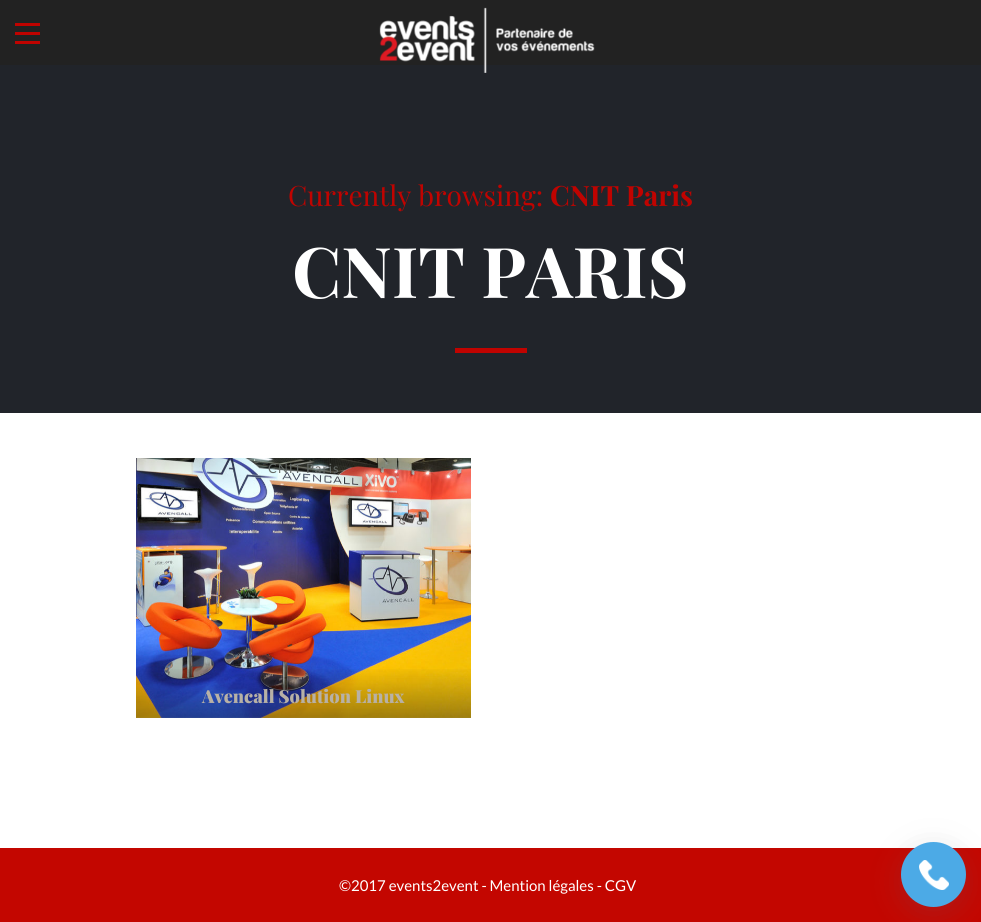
#include <cairo.h>
#include <math.h>
#include <stddef.h>

static cairo_t *ctx;

static void use_color(int r, int g, int b) {
    cairo_set_source_rgb(ctx, r / 255.0, g / 255.0, b / 255.0);
}

static void spaced_text(double x, double y, const char *s, double letter, double word) {
    cairo_move_to(ctx, x, y);
    while (*s) {
        char ch[5] = {0};
        int n = 0;
        do ch[n++] = *s++; while ((*s & 0xC0) == 0x80);
        cairo_show_text(ctx, ch);
        cairo_rel_move_to(ctx, letter + word * (*ch == ' '), 0);
    }
}

static void round_rect(double x, double y, double w, double h, double r) {
    cairo_new_sub_path(ctx);
    cairo_arc(ctx, x + w - r, y + h - r, r, 0, M_PI / 2);
    cairo_arc(ctx, x + r, y + h - r, r, M_PI / 2, M_PI);
    cairo_arc(ctx, x + r, y + r, r, M_PI, 1.5 * M_PI);
    cairo_arc(ctx, x + w - r, y + r, r, 1.5 * M_PI, 2 * M_PI);
    cairo_close_path(ctx);
}

static void shadow(double x, double y, double w, double h, double r, double blur, double alpha) {
    cairo_push_group_with_content(ctx, CAIRO_CONTENT_ALPHA);
    cairo_set_operator(ctx, CAIRO_OPERATOR_SOURCE);
    for (int i = 15; i >= -15 && fmin(w, h) + blur * i / 3 > 0; i -= 2) {
        double e = blur * i / 6;
        cairo_set_source_rgba(ctx, 0, 0, 0, alpha * erfc((i - 1) / 8.5) / 2);
        round_rect(x - e, y - e, w + 2 * e, h + 2 * e, fmax(0, fmin(r + e + blur * .6, fmin(w, h) / 2 + e)));
        cairo_fill(ctx);
    }
    cairo_pattern_t *soft = cairo_pop_group(ctx);
    cairo_mask(ctx, soft);
    cairo_pattern_destroy(soft);
}

static void picture(const char *path, double x, double y, double w, double h) {
    cairo_surface_t *image = cairo_image_surface_create_from_png(path);
    cairo_save(ctx);
    cairo_set_source_surface(ctx, image, x, y);
    cairo_rectangle(ctx, x, y, w, h);
    cairo_fill(ctx);
    cairo_restore(ctx);
    cairo_surface_destroy(image);
}

int main(void) {
    cairo_surface_t *surface = cairo_image_surface_create(CAIRO_FORMAT_RGB24, 981, 922);
    ctx = cairo_create(surface);
    cairo_font_options_t *options = cairo_font_options_create();
    cairo_font_options_set_hint_metrics(options, CAIRO_HINT_METRICS_OFF);
    cairo_font_options_set_hint_style(options, CAIRO_HINT_STYLE_NONE);
    cairo_set_font_options(ctx, options);
    cairo_set_miter_limit(ctx, 4);
    cairo_pattern_t *gradient;
    use_color(33, 36, 42);
    cairo_paint(ctx);
    use_color(34, 34, 34);
    cairo_rectangle(ctx, 0, 0, 981, 65);
    cairo_fill(ctx);
    use_color(192, 3, 0);
    cairo_rectangle(ctx, 15, 32, 25, 3);
    cairo_fill(ctx);
    cairo_rectangle(ctx, 15, 23, 25, 3);
    cairo_fill(ctx);
    cairo_rectangle(ctx, 15, 41, 25, 3);
    cairo_fill(ctx);
    picture("img1.png", 379, 7, 216, 66);
    cairo_select_font_face(ctx, "Playfair Display", CAIRO_FONT_SLANT_NORMAL, CAIRO_FONT_WEIGHT_NORMAL);
    cairo_set_font_size(ctx, 28);
    cairo_move_to(ctx, 288, 206);
    cairo_show_text(ctx, "Currently browsing:");
    cairo_select_font_face(ctx, "Playfair Display", CAIRO_FONT_SLANT_NORMAL, CAIRO_FONT_WEIGHT_BOLD);
    cairo_move_to(ctx, 550, 206);
    cairo_show_text(ctx, "CNIT Paris");
    cairo_set_font_size(ctx, 70);
    use_color(255, 255, 255);
    cairo_move_to(ctx, 292, 298);
    cairo_show_text(ctx, "CNIT PARIS");
    use_color(192, 3, 0);
    cairo_rectangle(ctx, 455, 348, 72, 5);
    cairo_fill(ctx);
    use_color(255, 255, 255);
    cairo_rectangle(ctx, 0, 413, 981, 435);
    cairo_fill(ctx);
    picture("img2.png", 136, 458, 335, 260);
    cairo_select_font_face(ctx, "Lato", CAIRO_FONT_SLANT_NORMAL, CAIRO_FONT_WEIGHT_NORMAL);
    cairo_set_font_size(ctx, 13);
    use_color(100, 106, 103);
    spaced_text(268, 473, "CNIT Paris", 1, 0);
    gradient = cairo_pattern_create_linear(304, 458, 304, 718);
    cairo_pattern_add_color_stop_rgba(gradient, 0.8, 0.118, 0.118, 0.118, 0);
    cairo_pattern_add_color_stop_rgba(gradient, 1, 0.118, 0.118, 0.118, 0.4);
    cairo_set_source(ctx, gradient);
    cairo_pattern_destroy(gradient);
    cairo_rectangle(ctx, 136, 669, 335, 49);
    cairo_fill(ctx);
    cairo_select_font_face(ctx, "Playfair Display Black", CAIRO_FONT_SLANT_NORMAL, CAIRO_FONT_WEIGHT_NORMAL);
    cairo_set_font_size(ctx, 18);
    use_color(184, 177, 166);
    cairo_move_to(ctx, 202, 703);
    cairo_show_text(ctx, "Avencall Solution Linux");
    use_color(195, 6, 0);
    cairo_rectangle(ctx, 0, 848, 981, 74);
    cairo_fill(ctx);
    cairo_select_font_face(ctx, "Lato", CAIRO_FONT_SLANT_NORMAL, CAIRO_FONT_WEIGHT_NORMAL);
    cairo_set_font_size(ctx, 15);
    use_color(255, 255, 255);
    cairo_move_to(ctx, 339, 891);
    cairo_show_text(ctx, "©2017 events2event - Mention légales - CGV");
    use_color(100, 100, 111);
    shadow(901, 849, 65, 65, 32.5, 14.5, 0.2);
    use_color(76, 170, 230);
    cairo_arc(ctx, 933.5, 874.5, 32.5, 0, 2 * M_PI);
    cairo_fill(ctx);
    picture("img3.png", 919, 860, 30, 30);
    cairo_surface_write_to_png(surface, "result.png");
    cairo_font_options_destroy(options);
    cairo_destroy(ctx);
    cairo_surface_destroy(surface);
    return 0;
}
